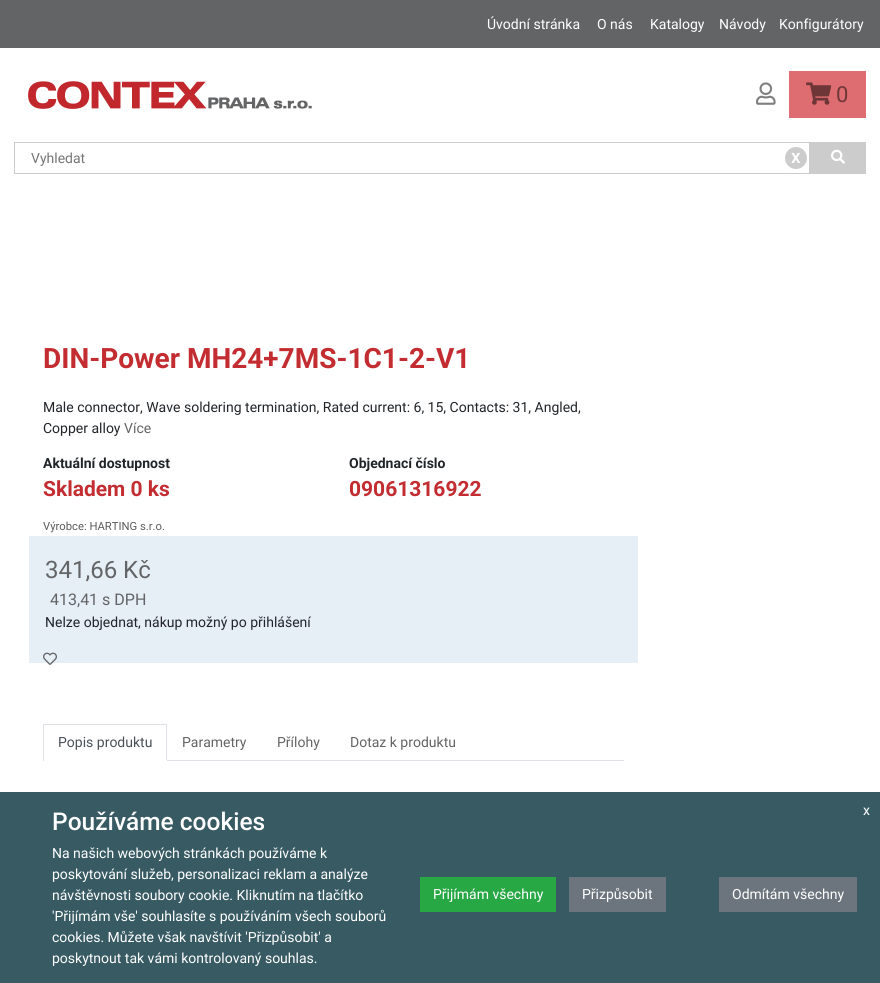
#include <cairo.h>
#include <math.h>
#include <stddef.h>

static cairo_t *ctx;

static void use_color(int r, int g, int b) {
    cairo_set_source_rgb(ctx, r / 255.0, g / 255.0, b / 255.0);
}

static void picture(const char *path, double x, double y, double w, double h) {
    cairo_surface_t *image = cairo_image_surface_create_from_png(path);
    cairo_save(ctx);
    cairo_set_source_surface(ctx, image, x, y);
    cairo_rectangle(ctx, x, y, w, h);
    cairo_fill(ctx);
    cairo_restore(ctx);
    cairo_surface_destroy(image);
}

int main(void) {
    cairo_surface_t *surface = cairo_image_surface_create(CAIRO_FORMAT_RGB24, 880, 983);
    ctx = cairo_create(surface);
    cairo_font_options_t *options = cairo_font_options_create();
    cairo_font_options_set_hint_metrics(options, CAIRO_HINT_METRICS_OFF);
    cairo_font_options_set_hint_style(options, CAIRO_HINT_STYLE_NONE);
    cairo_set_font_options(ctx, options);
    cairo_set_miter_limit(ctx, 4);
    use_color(255, 255, 255);
    cairo_paint(ctx);
    use_color(99, 100, 102);
    cairo_rectangle(ctx, 0, 0, 880, 48);
    cairo_fill(ctx);
    cairo_select_font_face(ctx, "Roboto", CAIRO_FONT_SLANT_NORMAL, CAIRO_FONT_WEIGHT_NORMAL);
    cairo_set_font_size(ctx, 14);
    use_color(255, 255, 255);
    cairo_move_to(ctx, 487, 29);
    cairo_show_text(ctx, "Úvodní stránka");
    cairo_move_to(ctx, 597, 29);
    cairo_show_text(ctx, "O nás");
    cairo_move_to(ctx, 650, 29);
    cairo_show_text(ctx, "Katalogy");
    cairo_move_to(ctx, 719, 29);
    cairo_show_text(ctx, "Návody");
    cairo_move_to(ctx, 779, 29);
    cairo_show_text(ctx, "Konfigurátory");
    picture("img1.png", 28, 81, 284, 28);
    picture("img2.png", 756, 82, 20, 23);
    use_color(222, 109, 113);
    cairo_rectangle(ctx, 789, 71, 77, 47);
    cairo_fill(ctx);
    picture("img3.png", 806, 82, 26, 23);
    cairo_set_font_size(ctx, 22);
    use_color(111, 55, 57);
    cairo_move_to(ctx, 836, 102);
    cairo_show_text(ctx, "0");
    cairo_rectangle(ctx, 14.5, 142.5, 795, 31);
    use_color(204, 204, 204);
    cairo_set_line_width(ctx, 1);
    cairo_stroke(ctx);
    cairo_set_font_size(ctx, 14);
    use_color(117, 117, 117);
    cairo_move_to(ctx, 31, 163);
    cairo_show_text(ctx, "Vyhledat");
    use_color(204, 204, 204);
    cairo_new_path(ctx);
    cairo_arc(ctx, 796, 158, 11, 0, 2 * M_PI);
    cairo_fill(ctx);
    cairo_select_font_face(ctx, "Roboto Medium", CAIRO_FONT_SLANT_NORMAL, CAIRO_FONT_WEIGHT_NORMAL);
    cairo_set_font_size(ctx, 19);
    use_color(255, 255, 255);
    cairo_move_to(ctx, 791, 163);
    cairo_show_text(ctx, "x");
    use_color(204, 204, 204);
    cairo_rectangle(ctx, 810, 142, 56, 32);
    cairo_fill(ctx);
    picture("img4.png", 831, 149, 14, 15);
    cairo_select_font_face(ctx, "Roboto", CAIRO_FONT_SLANT_NORMAL, CAIRO_FONT_WEIGHT_BOLD);
    cairo_set_font_size(ctx, 28);
    use_color(195, 44, 49);
    cairo_move_to(ctx, 43, 368);
    cairo_show_text(ctx, "DIN-Power MH24+7MS-1C1-2-V1");
    cairo_select_font_face(ctx, "Roboto", CAIRO_FONT_SLANT_NORMAL, CAIRO_FONT_WEIGHT_NORMAL);
    cairo_set_font_size(ctx, 14);
    use_color(33, 37, 41);
    cairo_move_to(ctx, 43, 412);
    cairo_show_text(ctx, "Male connector, Wave soldering termination, Rated current: 6, 15, Contacts: 31, Angled,");
    cairo_move_to(ctx, 43, 433);
    cairo_show_text(ctx, "Copper alloy");
    use_color(99, 100, 102);
    cairo_move_to(ctx, 124, 433);
    cairo_show_text(ctx, "Více");
    cairo_select_font_face(ctx, "Roboto", CAIRO_FONT_SLANT_NORMAL, CAIRO_FONT_WEIGHT_BOLD);
    use_color(33, 37, 41);
    cairo_move_to(ctx, 43, 468);
    cairo_show_text(ctx, "Aktuální dostupnost");
    cairo_set_font_size(ctx, 21);
    use_color(195, 44, 49);
    cairo_move_to(ctx, 43, 496);
    cairo_show_text(ctx, "Skladem 0 ks");
    cairo_set_font_size(ctx, 14);
    use_color(33, 37, 41);
    cairo_move_to(ctx, 349, 468);
    cairo_show_text(ctx, "Objednací číslo");
    cairo_set_font_size(ctx, 21);
    use_color(195, 44, 49);
    cairo_move_to(ctx, 349, 496);
    cairo_show_text(ctx, "09061316922");
    cairo_select_font_face(ctx, "Roboto", CAIRO_FONT_SLANT_NORMAL, CAIRO_FONT_WEIGHT_NORMAL);
    cairo_set_font_size(ctx, 11.25);
    use_color(92, 92, 92);
    cairo_move_to(ctx, 43, 530);
    cairo_show_text(ctx, "Výrobce: HARTING s.r.o.");
    use_color(230, 238, 246);
    cairo_rectangle(ctx, 29, 536, 609, 127);
    cairo_fill(ctx);
    cairo_set_font_size(ctx, 24);
    use_color(99, 100, 102);
    cairo_move_to(ctx, 45, 578);
    cairo_show_text(ctx, "341,66 Kč");
    cairo_set_font_size(ctx, 16);
    cairo_move_to(ctx, 50, 605);
    cairo_show_text(ctx, "413,41 s DPH");
    cairo_set_font_size(ctx, 14);
    use_color(33, 37, 41);
    cairo_move_to(ctx, 45, 627);
    cairo_show_text(ctx, "Nelze objednat, nákup možný po přihlášení");
    picture("img5.png", 43, 652, 14, 13);
    use_color(222, 226, 230);
    cairo_rectangle(ctx, 167, 760, 457, 1);
    cairo_fill(ctx);
    cairo_rectangle(ctx, 43, 724, 124, 1);
    cairo_fill(ctx);
    cairo_rectangle(ctx, 166, 724, 1, 37);
    cairo_fill(ctx);
    use_color(255, 255, 255);
    cairo_rectangle(ctx, 166, 760, 1, 1);
    cairo_fill(ctx);
    use_color(222, 226, 230);
    cairo_rectangle(ctx, 43, 724, 1, 37);
    cairo_fill(ctx);
    use_color(73, 80, 87);
    cairo_move_to(ctx, 58, 747);
    cairo_show_text(ctx, "Popis produktu");
    use_color(99, 100, 102);
    cairo_move_to(ctx, 182, 747);
    cairo_show_text(ctx, "Parametry");
    cairo_move_to(ctx, 277, 747);
    cairo_show_text(ctx, "Přílohy");
    cairo_move_to(ctx, 350, 747);
    cairo_show_text(ctx, "Dotaz k produktu");
    cairo_set_source_rgba(ctx, 0.02, 0.192, 0.239, 0.8);
    cairo_rectangle(ctx, 0, 792, 880, 191);
    cairo_fill(ctx);
    cairo_select_font_face(ctx, "Roboto Medium", CAIRO_FONT_SLANT_NORMAL, CAIRO_FONT_WEIGHT_NORMAL);
    cairo_set_font_size(ctx, 24.5);
    use_color(255, 255, 255);
    cairo_move_to(ctx, 52, 830);
    cairo_show_text(ctx, "Používáme cookies");
    cairo_select_font_face(ctx, "Roboto", CAIRO_FONT_SLANT_NORMAL, CAIRO_FONT_WEIGHT_NORMAL);
    cairo_set_font_size(ctx, 14);
    cairo_move_to(ctx, 52, 858);
    cairo_show_text(ctx, "Na našich webových stránkách používáme k");
    cairo_move_to(ctx, 52, 879);
    cairo_show_text(ctx, "poskytování služeb, personalizaci reklam a analýze");
    cairo_move_to(ctx, 52, 900);
    cairo_show_text(ctx, "návštěvnosti soubory cookie. Kliknutím na tlačítko");
    cairo_move_to(ctx, 52, 921);
    cairo_show_text(ctx, "'Přijímám vše' souhlasíte s používáním všech souborů");
    cairo_move_to(ctx, 52, 942);
    cairo_show_text(ctx, "cookies. Můžete však navštívit 'Přizpůsobit' a");
    cairo_move_to(ctx, 52, 963);
    cairo_show_text(ctx, "poskytnout tak vámi kontrolovaný souhlas.");
    use_color(40, 167, 69);
    cairo_rectangle(ctx, 420, 877, 136, 35);
    cairo_fill(ctx);
    use_color(255, 255, 255);
    cairo_move_to(ctx, 433, 899);
    cairo_show_text(ctx, "Přijímám všechny");
    use_color(108, 117, 125);
    cairo_rectangle(ctx, 569, 877, 97, 35);
    cairo_fill(ctx);
    use_color(255, 255, 255);
    cairo_move_to(ctx, 582, 899);
    cairo_show_text(ctx, "Přizpůsobit");
    use_color(108, 117, 125);
    cairo_rectangle(ctx, 719, 877, 138, 35);
    cairo_fill(ctx);
    use_color(255, 255, 255);
    cairo_move_to(ctx, 732, 899);
    cairo_show_text(ctx, "Odmítám všechny");
    cairo_move_to(ctx, 863, 815);
    cairo_show_text(ctx, "x");
    cairo_surface_write_to_png(surface, "result.png");
    cairo_font_options_destroy(options);
    cairo_destroy(ctx);
    cairo_surface_destroy(surface);
    return 0;
}
